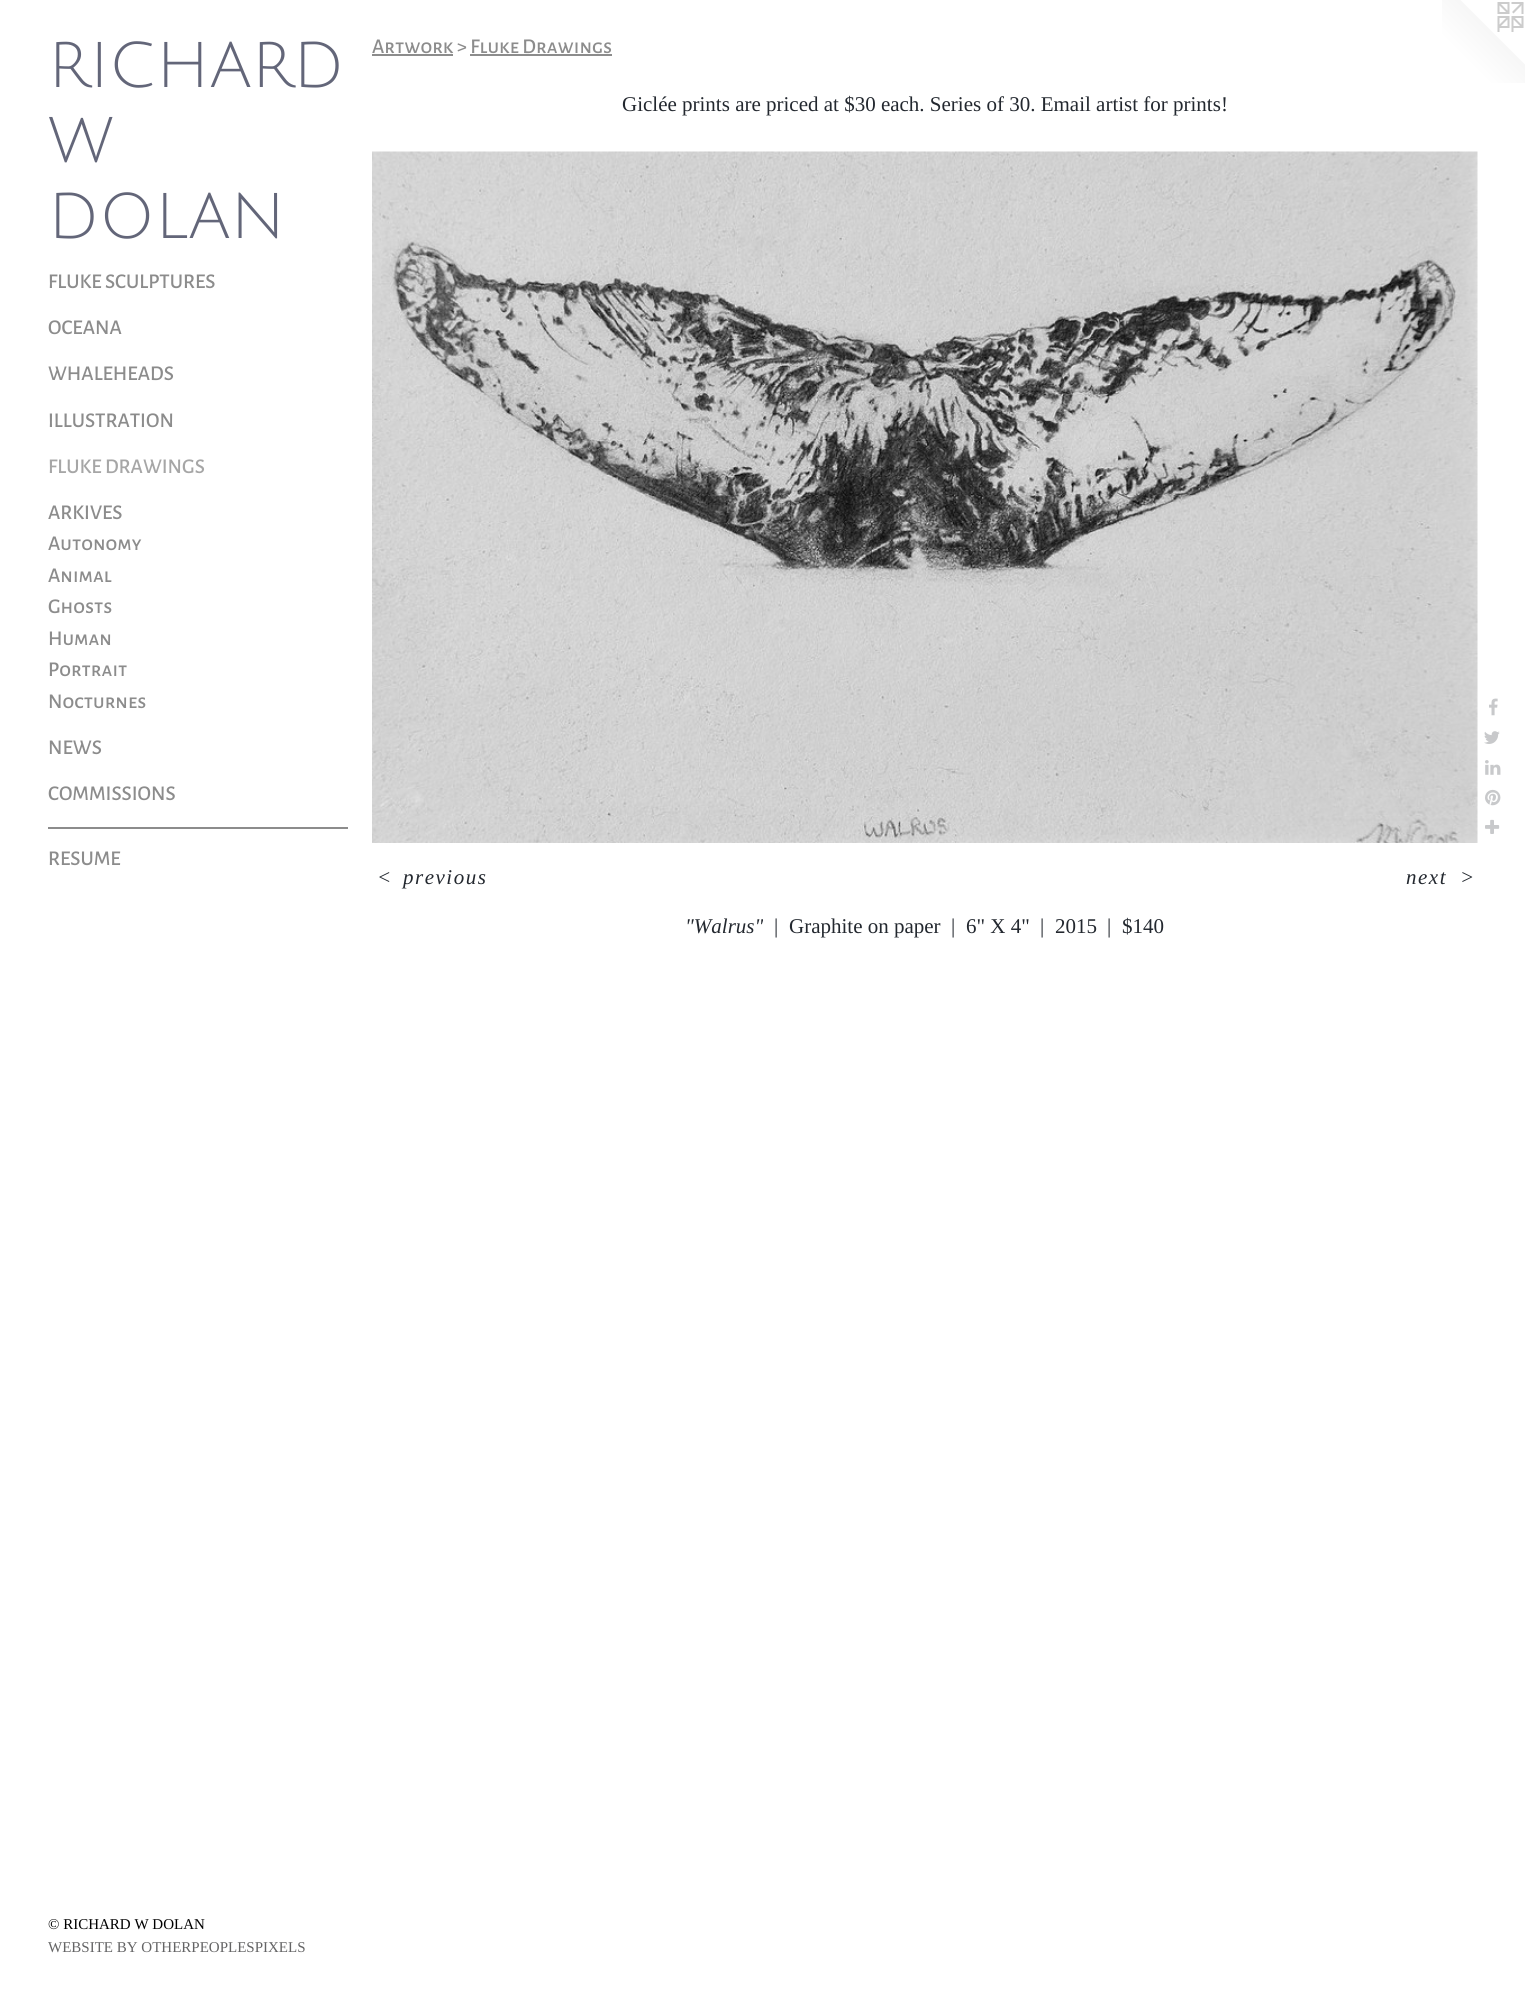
#include <cairo.h>
#include <math.h>
#include <stddef.h>

static cairo_t *ctx;

static void use_color(int r, int g, int b) {
    cairo_set_source_rgb(ctx, r / 255.0, g / 255.0, b / 255.0);
}

static void spaced_text(double x, double y, const char *s, double letter, double word) {
    cairo_move_to(ctx, x, y);
    while (*s) {
        char ch[5] = {0};
        int n = 0;
        do ch[n++] = *s++; while ((*s & 0xC0) == 0x80);
        cairo_show_text(ctx, ch);
        cairo_rel_move_to(ctx, letter + word * (*ch == ' '), 0);
    }
}

static void picture(const char *path, double x, double y, double w, double h) {
    cairo_surface_t *image = cairo_image_surface_create_from_png(path);
    cairo_save(ctx);
    cairo_set_source_surface(ctx, image, x, y);
    cairo_rectangle(ctx, x, y, w, h);
    cairo_fill(ctx);
    cairo_restore(ctx);
    cairo_surface_destroy(image);
}

int main(void) {
    cairo_surface_t *surface = cairo_image_surface_create(CAIRO_FORMAT_RGB24, 1525, 1992);
    ctx = cairo_create(surface);
    cairo_font_options_t *options = cairo_font_options_create();
    cairo_font_options_set_hint_metrics(options, CAIRO_HINT_METRICS_OFF);
    cairo_font_options_set_hint_style(options, CAIRO_HINT_STYLE_NONE);
    cairo_set_font_options(ctx, options);
    cairo_set_miter_limit(ctx, 4);
    use_color(255, 255, 255);
    cairo_paint(ctx);
    cairo_select_font_face(ctx, "Julius Sans One", CAIRO_FONT_SLANT_NORMAL, CAIRO_FONT_WEIGHT_NORMAL);
    cairo_set_font_size(ctx, 63);
    use_color(99, 102, 121);
    cairo_move_to(ctx, 48, 87);
    cairo_show_text(ctx, "RICHARD");
    cairo_move_to(ctx, 48, 162);
    cairo_show_text(ctx, "W");
    cairo_move_to(ctx, 48, 238);
    cairo_show_text(ctx, "DOLAN");
    cairo_select_font_face(ctx, "Alegreya Sans SC Medium", CAIRO_FONT_SLANT_NORMAL, CAIRO_FONT_WEIGHT_NORMAL);
    cairo_set_font_size(ctx, 21);
    use_color(140, 140, 140);
    cairo_move_to(ctx, 48, 288);
    cairo_show_text(ctx, "FLUKE SCULPTURES");
    cairo_move_to(ctx, 48, 334);
    cairo_show_text(ctx, "OCEANA");
    cairo_move_to(ctx, 48, 380);
    cairo_show_text(ctx, "WHALEHEADS");
    cairo_move_to(ctx, 48, 427);
    cairo_show_text(ctx, "ILLUSTRATION");
    use_color(166, 166, 166);
    cairo_move_to(ctx, 48, 473);
    cairo_show_text(ctx, "FLUKE DRAWINGS");
    use_color(140, 140, 140);
    cairo_move_to(ctx, 48, 519);
    cairo_show_text(ctx, "ARKIVES");
    cairo_move_to(ctx, 48, 550);
    cairo_show_text(ctx, "Autonomy");
    cairo_move_to(ctx, 48, 582);
    cairo_show_text(ctx, "Animal");
    cairo_move_to(ctx, 48, 613);
    cairo_show_text(ctx, "Ghosts");
    cairo_move_to(ctx, 48, 645);
    cairo_show_text(ctx, "Human");
    cairo_move_to(ctx, 48, 676);
    cairo_show_text(ctx, "Portrait");
    cairo_move_to(ctx, 48, 708);
    cairo_show_text(ctx, "Nocturnes");
    cairo_move_to(ctx, 48, 754);
    cairo_show_text(ctx, "NEWS");
    cairo_move_to(ctx, 48, 800);
    cairo_show_text(ctx, "COMMISSIONS");
    cairo_rectangle(ctx, 48, 827, 300, 2);
    cairo_fill(ctx);
    cairo_move_to(ctx, 48, 865);
    cairo_show_text(ctx, "RESUME");
    cairo_select_font_face(ctx, "Liberation Serif", CAIRO_FONT_SLANT_NORMAL, CAIRO_FONT_WEIGHT_NORMAL);
    cairo_set_font_size(ctx, 15);
    use_color(0, 0, 0);
    cairo_move_to(ctx, 48, 1929);
    cairo_show_text(ctx, "© RICHARD W DOLAN");
    use_color(100, 100, 101);
    cairo_move_to(ctx, 48, 1952);
    cairo_show_text(ctx, "WEBSITE BY OTHERPEOPLESPIXELS");
    cairo_select_font_face(ctx, "Alegreya Sans SC Medium", CAIRO_FONT_SLANT_NORMAL, CAIRO_FONT_WEIGHT_NORMAL);
    cairo_set_font_size(ctx, 21);
    use_color(140, 140, 140);
    cairo_move_to(ctx, 372, 53);
    cairo_show_text(ctx, "Artwork > Fluke Drawings");
    cairo_rectangle(ctx, 372, 54, 81, 2);
    cairo_fill(ctx);
    cairo_rectangle(ctx, 470, 54, 142, 2);
    cairo_fill(ctx);
    cairo_select_font_face(ctx, "Liberation Serif", CAIRO_FONT_SLANT_NORMAL, CAIRO_FONT_WEIGHT_NORMAL);
    use_color(35, 40, 47);
    cairo_move_to(ctx, 622, 111);
    cairo_show_text(ctx, "Giclée prints are priced at $30 each. Series of 30. Email artist for prints!");
    picture("img1.png", 372, 151, 1106, 692);
    picture("img2.png", 1489, 698, 9, 18);
    picture("img3.png", 1484, 731, 16, 13);
    picture("img4.png", 1485, 760, 16, 15);
    picture("img5.png", 1485, 789, 16, 17);
    picture("img6.png", 1485, 819, 15, 15);
    cairo_select_font_face(ctx, "Liberation Serif", CAIRO_FONT_SLANT_ITALIC, CAIRO_FONT_WEIGHT_NORMAL);
    spaced_text(377, 884, "<", 1.5, 0);
    spaced_text(403, 884, "previous", 1.5, 0);
    spaced_text(1406, 884, "next", 1.5, 0);
    spaced_text(1460, 884, ">", 1.5, 0);
    cairo_move_to(ctx, 685, 933);
    cairo_show_text(ctx, "\"Walrus\"");
    cairo_select_font_face(ctx, "Liberation Serif", CAIRO_FONT_SLANT_NORMAL, CAIRO_FONT_WEIGHT_NORMAL);
    cairo_move_to(ctx, 774, 933);
    cairo_show_text(ctx, "|");
    cairo_move_to(ctx, 789, 933);
    cairo_show_text(ctx, "Graphite on paper");
    cairo_move_to(ctx, 951, 933);
    cairo_show_text(ctx, "|");
    cairo_move_to(ctx, 966, 933);
    cairo_show_text(ctx, "6\" X 4\"");
    cairo_move_to(ctx, 1040, 933);
    cairo_show_text(ctx, "|");
    cairo_move_to(ctx, 1055, 933);
    cairo_show_text(ctx, "2015");
    cairo_move_to(ctx, 1107, 933);
    cairo_show_text(ctx, "|");
    cairo_move_to(ctx, 1122, 933);
    cairo_show_text(ctx, "$140");
    picture("img7.png", 1442, 0, 83, 83);
    cairo_surface_write_to_png(surface, "result.png");
    cairo_font_options_destroy(options);
    cairo_destroy(ctx);
    cairo_surface_destroy(surface);
    return 0;
}
